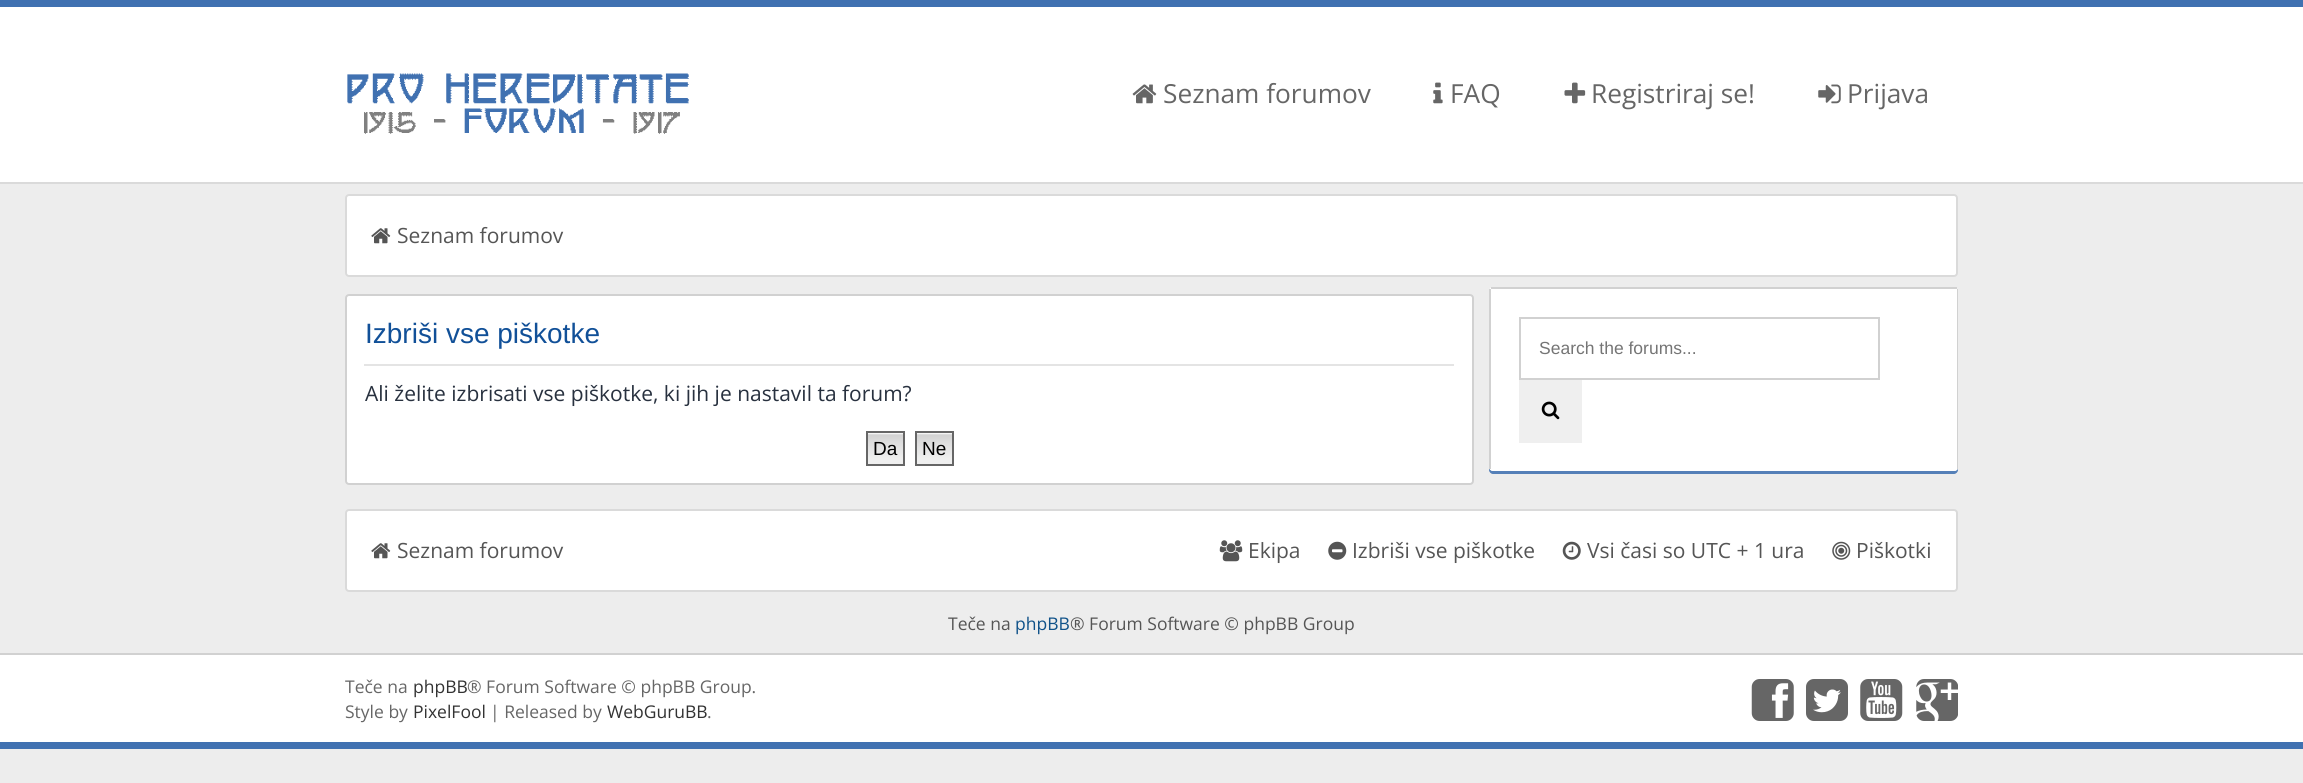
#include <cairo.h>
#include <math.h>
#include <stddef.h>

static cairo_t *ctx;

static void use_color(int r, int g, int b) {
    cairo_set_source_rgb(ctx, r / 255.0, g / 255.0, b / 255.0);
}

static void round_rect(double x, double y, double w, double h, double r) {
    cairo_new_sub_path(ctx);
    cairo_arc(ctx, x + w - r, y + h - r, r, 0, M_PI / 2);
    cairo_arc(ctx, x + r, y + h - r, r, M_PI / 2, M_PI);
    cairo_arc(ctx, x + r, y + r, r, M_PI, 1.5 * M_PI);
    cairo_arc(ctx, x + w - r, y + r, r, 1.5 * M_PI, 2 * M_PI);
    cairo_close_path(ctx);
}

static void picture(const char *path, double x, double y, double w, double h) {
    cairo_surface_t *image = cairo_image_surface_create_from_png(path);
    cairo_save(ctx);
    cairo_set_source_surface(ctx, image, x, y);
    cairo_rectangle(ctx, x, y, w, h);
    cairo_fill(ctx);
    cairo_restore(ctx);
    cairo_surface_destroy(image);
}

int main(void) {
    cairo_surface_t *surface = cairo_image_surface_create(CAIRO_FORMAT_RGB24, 2303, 783);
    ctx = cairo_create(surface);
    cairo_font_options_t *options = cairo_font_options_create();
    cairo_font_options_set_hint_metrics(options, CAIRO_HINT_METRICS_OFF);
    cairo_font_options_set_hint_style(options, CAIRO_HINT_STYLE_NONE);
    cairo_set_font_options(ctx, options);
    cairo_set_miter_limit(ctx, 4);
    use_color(237, 237, 237);
    cairo_paint(ctx);
    use_color(255, 255, 255);
    cairo_rectangle(ctx, 0, 7, 2303, 175);
    cairo_fill(ctx);
    use_color(64, 113, 177);
    cairo_rectangle(ctx, 0, 0, 2303, 7);
    cairo_fill(ctx);
    use_color(218, 218, 218);
    cairo_rectangle(ctx, 0, 182, 2303, 2);
    cairo_fill(ctx);
    picture("img1.png", 347, 73, 342, 61);
    picture("img2.png", 1132, 84, 25, 20);
    cairo_select_font_face(ctx, "Open Sans", CAIRO_FONT_SLANT_NORMAL, CAIRO_FONT_WEIGHT_NORMAL);
    cairo_set_font_size(ctx, 26.25);
    use_color(102, 102, 102);
    cairo_move_to(ctx, 1163, 103);
    cairo_show_text(ctx, "Seznam forumov");
    picture("img3.png", 1433, 82, 10, 22);
    cairo_move_to(ctx, 1450, 103);
    cairo_show_text(ctx, "FAQ");
    picture("img4.png", 1564, 82, 22, 22);
    cairo_move_to(ctx, 1591, 103);
    cairo_show_text(ctx, "Registriraj se!");
    picture("img5.png", 1818, 84, 23, 20);
    cairo_move_to(ctx, 1847, 103);
    cairo_show_text(ctx, "Prijava");
    use_color(255, 255, 255);
    round_rect(346, 195, 1611, 81, 3);
    cairo_fill_preserve(ctx);
    use_color(218, 218, 218);
    cairo_stroke(ctx);
    picture("img6.png", 371, 228, 20, 16);
    cairo_set_font_size(ctx, 21);
    use_color(85, 85, 85);
    cairo_move_to(ctx, 397, 243);
    cairo_show_text(ctx, "Seznam forumov");
    use_color(255, 255, 255);
    round_rect(346, 295, 1127, 189, 3);
    cairo_fill_preserve(ctx);
    use_color(209, 209, 209);
    cairo_stroke(ctx);
    use_color(228, 228, 228);
    cairo_rectangle(ctx, 364, 364, 1090, 2);
    cairo_fill(ctx);
    cairo_select_font_face(ctx, "Liberation Sans", CAIRO_FONT_SLANT_NORMAL, CAIRO_FONT_WEIGHT_NORMAL);
    cairo_set_font_size(ctx, 28);
    use_color(17, 80, 152);
    cairo_move_to(ctx, 365, 343);
    cairo_show_text(ctx, "Izbriši vse piškotke");
    cairo_select_font_face(ctx, "Open Sans", CAIRO_FONT_SLANT_NORMAL, CAIRO_FONT_WEIGHT_NORMAL);
    cairo_set_font_size(ctx, 21);
    use_color(40, 49, 63);
    cairo_move_to(ctx, 365, 401);
    cairo_show_text(ctx, "Ali želite izbrisati vse piškotke, ki jih je nastavil ta forum?");
    picture("img7.png", 868, 433, 35, 31);
    cairo_rectangle(ctx, 867, 432, 37, 33);
    use_color(102, 102, 102);
    cairo_stroke(ctx);
    cairo_select_font_face(ctx, "Liberation Sans", CAIRO_FONT_SLANT_NORMAL, CAIRO_FONT_WEIGHT_NORMAL);
    cairo_set_font_size(ctx, 19);
    use_color(0, 0, 0);
    cairo_move_to(ctx, 873, 455);
    cairo_show_text(ctx, "Da");
    picture("img7.png", 917, 433, 35, 31);
    cairo_rectangle(ctx, 916, 432, 37, 33);
    use_color(102, 102, 102);
    cairo_stroke(ctx);
    use_color(0, 0, 0);
    cairo_move_to(ctx, 922, 455);
    cairo_show_text(ctx, "Ne");
    use_color(85, 128, 184);
    cairo_new_path(ctx);
    cairo_move_to(ctx, 1489, 294);
    cairo_line_to(ctx, 1489, 470);
    cairo_curve_to(ctx, 1489, 472, 1491, 474, 1493, 474);
    cairo_line_to(ctx, 1954, 474);
    cairo_curve_to(ctx, 1956, 474, 1958, 472, 1958, 470);
    cairo_line_to(ctx, 1958, 469);
    cairo_curve_to(ctx, 1957, 470, 1956, 471, 1955, 471);
    cairo_line_to(ctx, 1493, 471);
    cairo_curve_to(ctx, 1491, 471, 1489, 469, 1489, 467);
    cairo_close_path(ctx);
    cairo_fill(ctx);
    use_color(255, 255, 255);
    round_rect(1489, 287, 469, 184, 4);
    cairo_fill(ctx);
    use_color(209, 209, 209);
    cairo_rectangle(ctx, 1491, 287, 466, 2);
    cairo_fill(ctx);
    cairo_rectangle(ctx, 1957, 289, 1, 180);
    cairo_fill(ctx);
    cairo_rectangle(ctx, 1489, 289, 2, 180);
    cairo_fill(ctx);
    cairo_rectangle(ctx, 1520, 318, 359, 61);
    cairo_stroke(ctx);
    cairo_set_font_size(ctx, 17.5);
    use_color(117, 117, 117);
    cairo_move_to(ctx, 1539, 354);
    cairo_show_text(ctx, "Search the forums...");
    use_color(239, 239, 239);
    cairo_rectangle(ctx, 1519, 380, 63, 63);
    cairo_fill(ctx);
    picture("img8.png", 1541, 401, 19, 19);
    use_color(255, 255, 255);
    round_rect(346, 510, 1611, 81, 3);
    cairo_fill_preserve(ctx);
    use_color(218, 218, 218);
    cairo_stroke(ctx);
    picture("img6.png", 371, 543, 20, 16);
    cairo_select_font_face(ctx, "Open Sans", CAIRO_FONT_SLANT_NORMAL, CAIRO_FONT_WEIGHT_NORMAL);
    cairo_set_font_size(ctx, 21);
    use_color(85, 85, 85);
    cairo_move_to(ctx, 397, 558);
    cairo_show_text(ctx, "Seznam forumov");
    picture("img9.png", 1219, 540, 24, 22);
    cairo_move_to(ctx, 1248, 558);
    cairo_show_text(ctx, "Ekipa");
    picture("img10.png", 1328, 541, 19, 19);
    cairo_move_to(ctx, 1352, 558);
    cairo_show_text(ctx, "Izbriši vse piškotke");
    picture("img11.png", 1562, 541, 19, 19);
    cairo_move_to(ctx, 1587, 558);
    cairo_show_text(ctx, "Vsi časi so UTC + 1 ura");
    picture("img12.png", 1832, 541, 19, 19);
    cairo_move_to(ctx, 1856, 558);
    cairo_show_text(ctx, "Piškotki");
    cairo_set_font_size(ctx, 17.5);
    cairo_move_to(ctx, 948, 630);
    cairo_show_text(ctx, "Teče na");
    use_color(16, 82, 137);
    cairo_move_to(ctx, 1015, 630);
    cairo_show_text(ctx, "phpBB");
    use_color(85, 85, 85);
    cairo_move_to(ctx, 1070, 630);
    cairo_show_text(ctx, "® Forum Software © phpBB Group");
    use_color(255, 255, 255);
    cairo_rectangle(ctx, 0, 655, 2303, 87);
    cairo_fill(ctx);
    use_color(209, 209, 209);
    cairo_rectangle(ctx, 0, 653, 2303, 2);
    cairo_fill(ctx);
    use_color(64, 113, 177);
    cairo_rectangle(ctx, 0, 742, 2303, 7);
    cairo_fill(ctx);
    use_color(102, 102, 102);
    cairo_move_to(ctx, 345, 693);
    cairo_show_text(ctx, "Teče na");
    use_color(51, 51, 51);
    cairo_move_to(ctx, 413, 693);
    cairo_show_text(ctx, "phpBB");
    use_color(102, 102, 102);
    cairo_move_to(ctx, 467, 693);
    cairo_show_text(ctx, "® Forum Software © phpBB Group.");
    cairo_move_to(ctx, 345, 718);
    cairo_show_text(ctx, "Style by");
    use_color(51, 51, 51);
    cairo_move_to(ctx, 413, 718);
    cairo_show_text(ctx, "PixelFool");
    use_color(102, 102, 102);
    cairo_move_to(ctx, 490, 718);
    cairo_show_text(ctx, "| Released by");
    use_color(51, 51, 51);
    cairo_move_to(ctx, 607, 718);
    cairo_show_text(ctx, "WebGuruBB");
    use_color(102, 102, 102);
    cairo_move_to(ctx, 707, 718);
    cairo_show_text(ctx, ".");
    picture("img13.png", 1751, 679, 43, 42);
    picture("img14.png", 1806, 679, 42, 42);
    picture("img15.png", 1860, 679, 43, 42);
    picture("img16.png", 1916, 679, 42, 42);
    cairo_surface_write_to_png(surface, "result.png");
    cairo_font_options_destroy(options);
    cairo_destroy(ctx);
    cairo_surface_destroy(surface);
    return 0;
}
